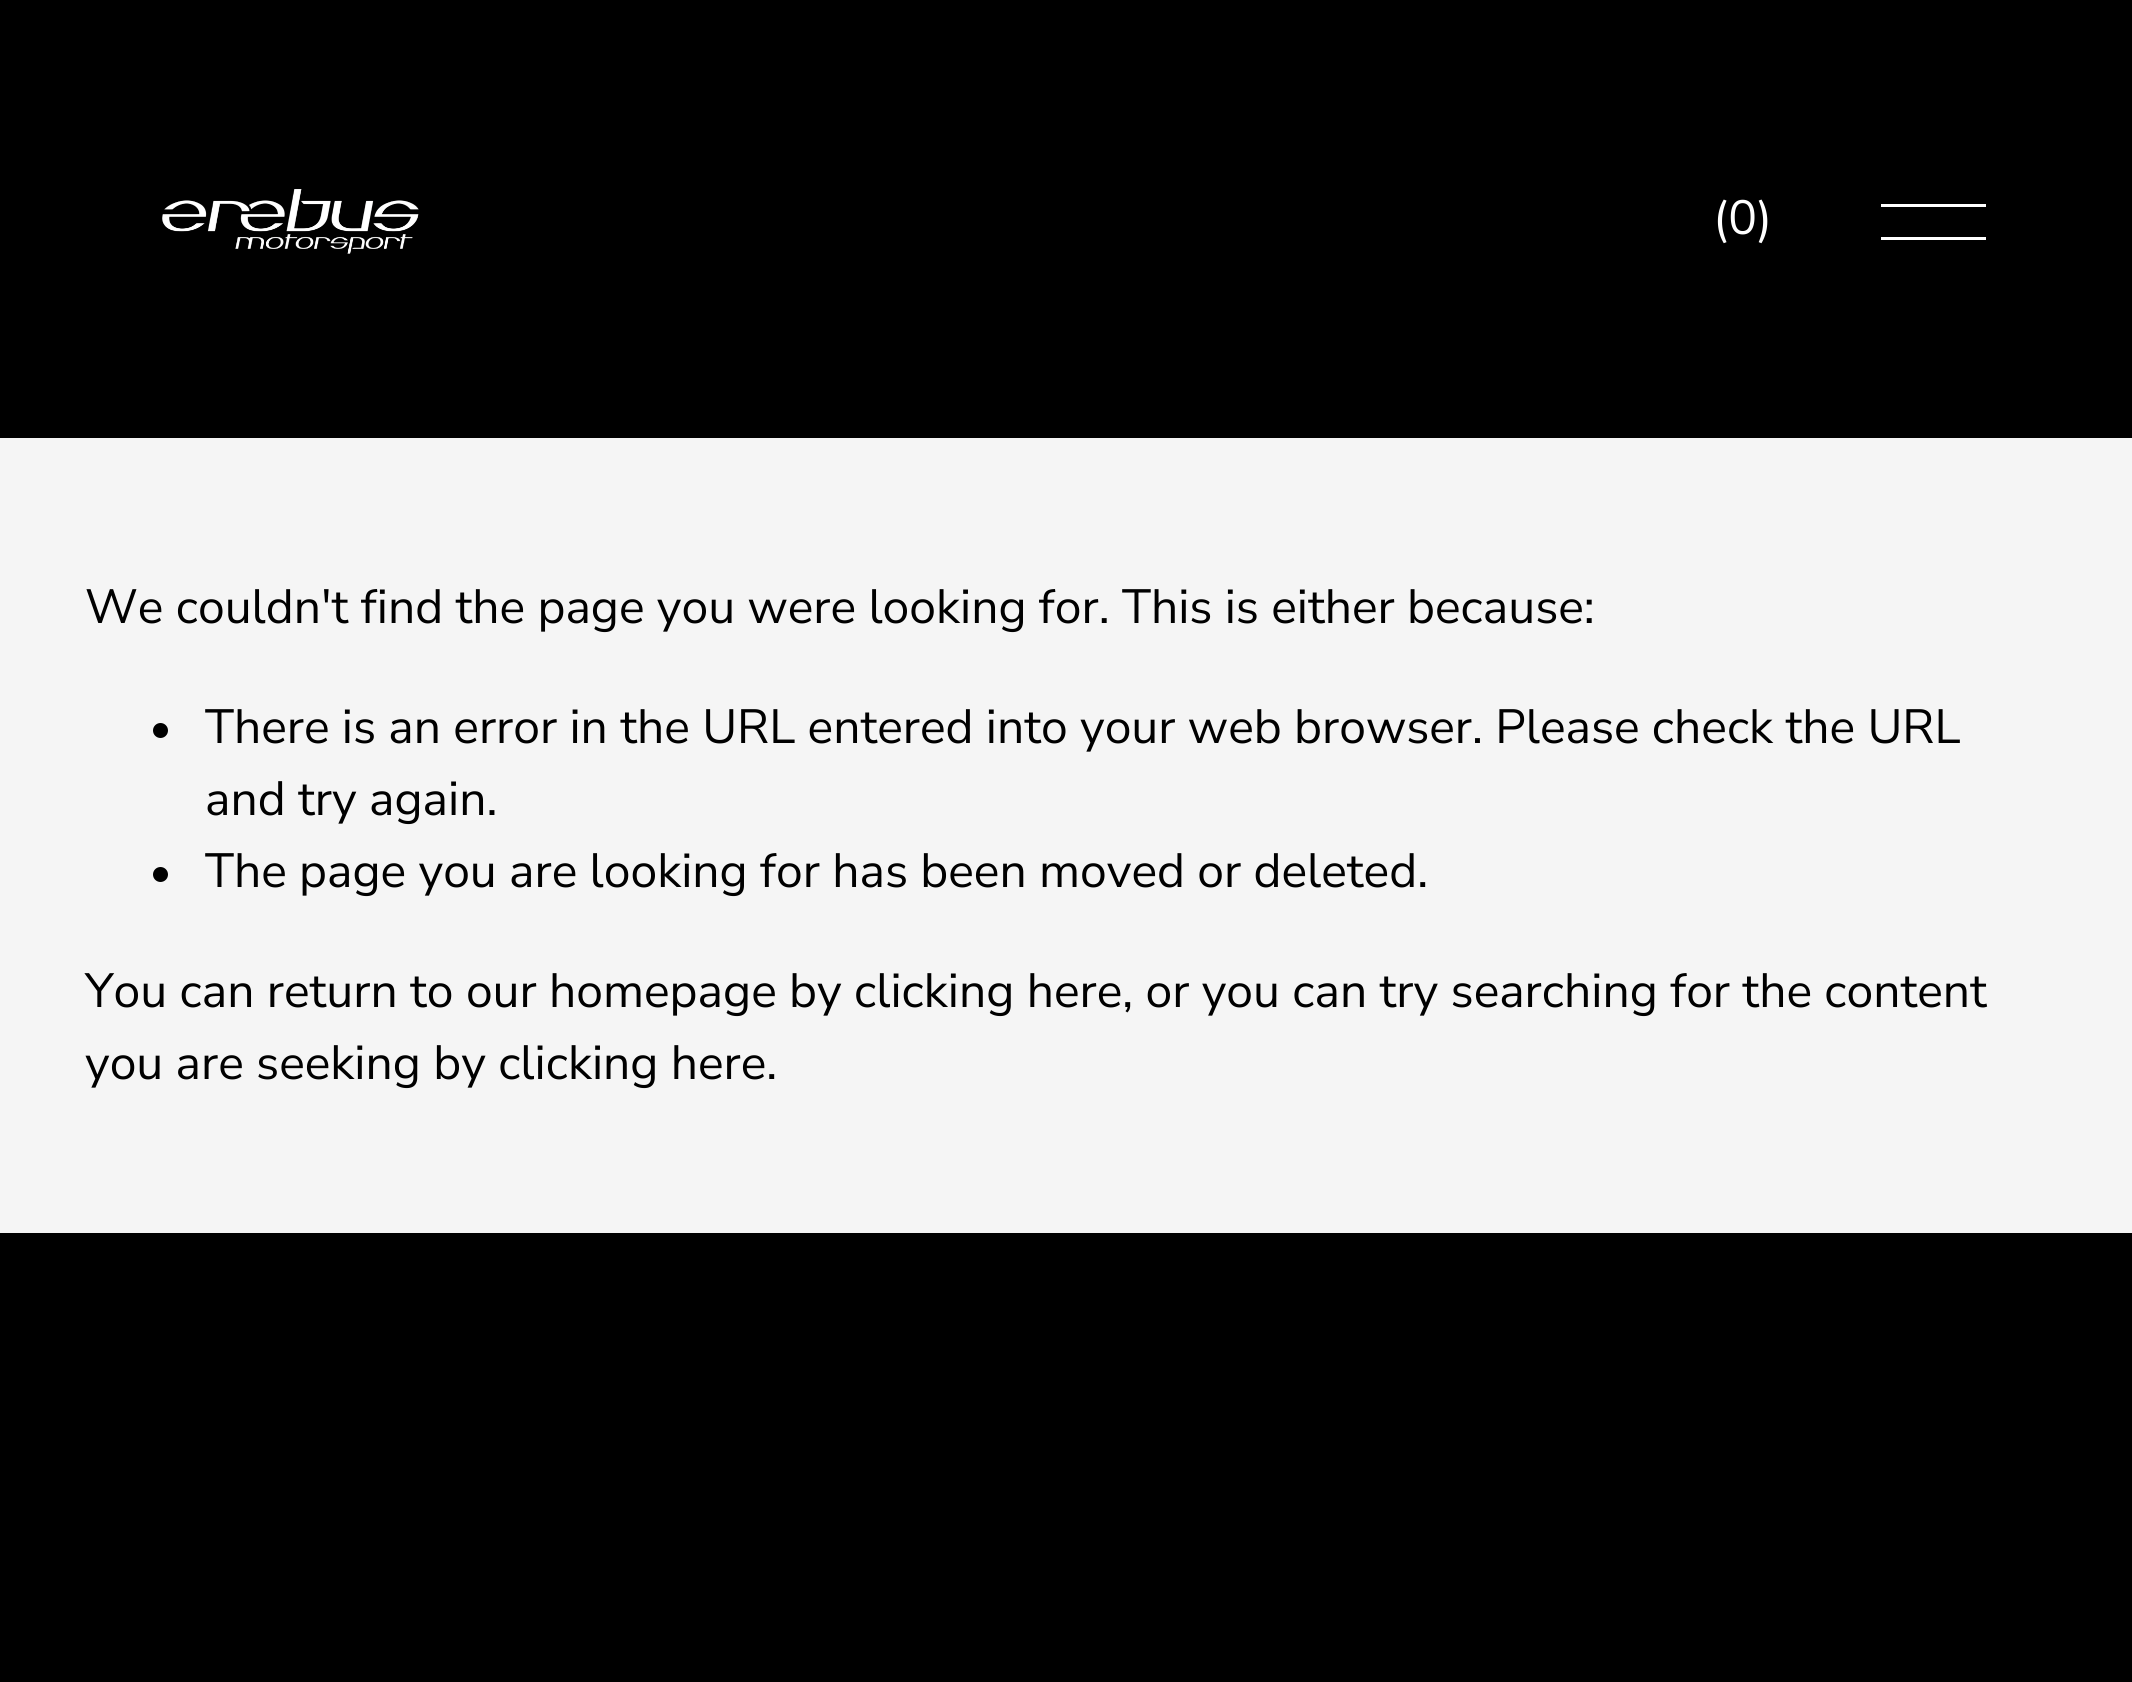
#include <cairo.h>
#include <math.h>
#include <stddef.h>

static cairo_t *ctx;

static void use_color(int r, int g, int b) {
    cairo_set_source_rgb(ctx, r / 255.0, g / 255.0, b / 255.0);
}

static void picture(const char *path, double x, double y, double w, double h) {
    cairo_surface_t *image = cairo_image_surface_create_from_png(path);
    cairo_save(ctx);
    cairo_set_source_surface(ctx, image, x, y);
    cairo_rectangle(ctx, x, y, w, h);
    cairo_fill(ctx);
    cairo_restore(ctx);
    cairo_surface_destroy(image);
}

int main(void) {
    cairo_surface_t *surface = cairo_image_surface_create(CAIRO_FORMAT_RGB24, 2132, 1682);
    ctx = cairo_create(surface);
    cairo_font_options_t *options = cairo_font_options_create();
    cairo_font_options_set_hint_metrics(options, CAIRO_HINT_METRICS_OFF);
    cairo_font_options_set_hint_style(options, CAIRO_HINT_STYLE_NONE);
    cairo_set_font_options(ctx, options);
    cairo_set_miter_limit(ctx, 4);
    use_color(245, 245, 245);
    cairo_paint(ctx);
    use_color(0, 0, 0);
    cairo_rectangle(ctx, 0, 0, 2132, 438);
    cairo_fill(ctx);
    picture("img1.png", 162, 189, 257, 65);
    cairo_select_font_face(ctx, "Nunito Sans", CAIRO_FONT_SLANT_NORMAL, CAIRO_FONT_WEIGHT_NORMAL);
    cairo_set_font_size(ctx, 48);
    use_color(255, 255, 255);
    cairo_move_to(ctx, 1713, 234);
    cairo_show_text(ctx, "(0)");
    cairo_rectangle(ctx, 1881, 204, 105, 3);
    cairo_fill(ctx);
    cairo_rectangle(ctx, 1881, 237, 105, 3);
    cairo_fill(ctx);
    use_color(0, 0, 0);
    cairo_move_to(ctx, 85, 623);
    cairo_show_text(ctx, "We couldn't find the page you were looking for. This is either because:");
    cairo_new_path(ctx);
    cairo_arc(ctx, 160.5, 730.5, 7.5, 0, 2 * M_PI);
    cairo_fill(ctx);
    cairo_move_to(ctx, 205, 743);
    cairo_show_text(ctx, "There is an error in the URL entered into your web browser. Please check the URL");
    cairo_move_to(ctx, 205, 815);
    cairo_show_text(ctx, "and try again.");
    cairo_new_path(ctx);
    cairo_arc(ctx, 160.5, 874.5, 7.5, 0, 2 * M_PI);
    cairo_fill(ctx);
    cairo_move_to(ctx, 205, 887);
    cairo_show_text(ctx, "The page you are looking for has been moved or deleted.");
    cairo_move_to(ctx, 85, 1007);
    cairo_show_text(ctx, "You can return to our homepage by clicking here, or you can try searching for the content");
    cairo_move_to(ctx, 85, 1079);
    cairo_show_text(ctx, "you are seeking by clicking here.");
    cairo_rectangle(ctx, 0, 1233, 2132, 449);
    cairo_fill(ctx);
    cairo_surface_write_to_png(surface, "result.png");
    cairo_font_options_destroy(options);
    cairo_destroy(ctx);
    cairo_surface_destroy(surface);
    return 0;
}
